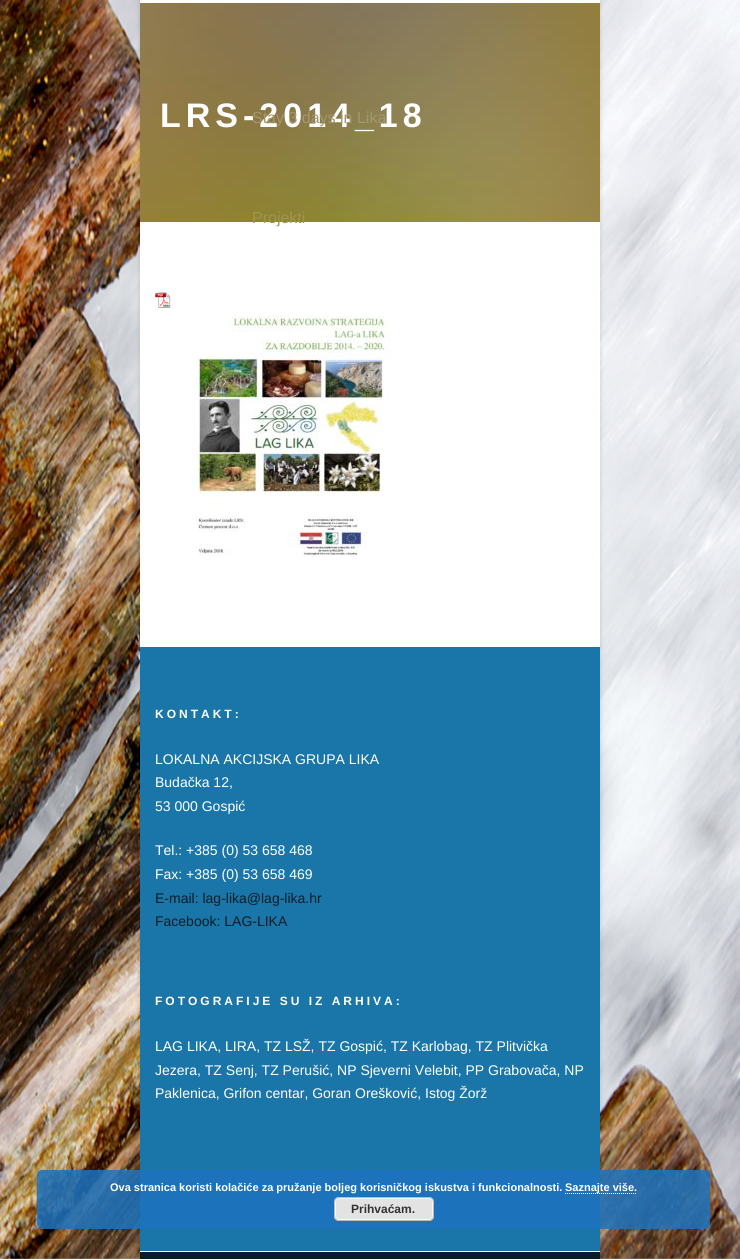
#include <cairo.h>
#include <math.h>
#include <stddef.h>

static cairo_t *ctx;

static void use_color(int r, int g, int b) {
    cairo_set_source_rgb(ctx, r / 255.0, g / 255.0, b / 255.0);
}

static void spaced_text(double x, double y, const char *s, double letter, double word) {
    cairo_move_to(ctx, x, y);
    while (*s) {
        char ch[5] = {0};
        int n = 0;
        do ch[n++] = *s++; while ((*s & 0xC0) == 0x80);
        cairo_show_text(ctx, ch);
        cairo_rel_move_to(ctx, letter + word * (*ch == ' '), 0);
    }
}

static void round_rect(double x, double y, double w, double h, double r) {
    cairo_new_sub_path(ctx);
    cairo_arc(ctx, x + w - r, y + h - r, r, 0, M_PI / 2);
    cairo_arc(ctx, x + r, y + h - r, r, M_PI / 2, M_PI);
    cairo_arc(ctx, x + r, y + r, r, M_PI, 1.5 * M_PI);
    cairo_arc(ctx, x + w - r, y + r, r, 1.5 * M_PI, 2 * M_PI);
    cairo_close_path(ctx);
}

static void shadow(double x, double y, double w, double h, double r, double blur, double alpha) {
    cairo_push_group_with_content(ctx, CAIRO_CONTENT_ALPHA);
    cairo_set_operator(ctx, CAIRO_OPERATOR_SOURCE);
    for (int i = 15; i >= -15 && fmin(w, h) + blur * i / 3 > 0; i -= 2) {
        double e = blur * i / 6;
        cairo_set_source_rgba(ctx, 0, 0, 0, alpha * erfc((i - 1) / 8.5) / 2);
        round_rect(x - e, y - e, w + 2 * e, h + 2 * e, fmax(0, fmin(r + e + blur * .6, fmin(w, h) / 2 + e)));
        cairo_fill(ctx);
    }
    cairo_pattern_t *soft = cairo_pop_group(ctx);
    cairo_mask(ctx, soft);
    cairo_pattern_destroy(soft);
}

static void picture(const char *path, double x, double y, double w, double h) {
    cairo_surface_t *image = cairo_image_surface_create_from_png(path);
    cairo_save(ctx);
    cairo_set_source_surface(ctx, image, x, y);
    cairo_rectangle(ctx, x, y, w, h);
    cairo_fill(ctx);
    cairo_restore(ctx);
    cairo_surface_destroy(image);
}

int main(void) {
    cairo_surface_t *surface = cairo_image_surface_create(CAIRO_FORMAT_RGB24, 740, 1259);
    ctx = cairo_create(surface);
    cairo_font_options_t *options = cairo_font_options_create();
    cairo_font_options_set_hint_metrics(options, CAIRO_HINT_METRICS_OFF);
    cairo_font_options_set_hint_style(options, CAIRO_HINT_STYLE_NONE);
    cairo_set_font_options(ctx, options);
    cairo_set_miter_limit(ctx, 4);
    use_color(255, 255, 255);
    cairo_paint(ctx);
    picture("img1.png", 0, 0, 740, 1259);
    use_color(0, 0, 0);
    shadow(140, -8, 460, 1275, 0, 2.5, 0.15);
    use_color(255, 255, 255);
    cairo_rectangle(ctx, 140, 0, 460, 647);
    cairo_fill(ctx);
    picture("img2.png", 140, 3, 460, 219);
    cairo_select_font_face(ctx, "Liberation Sans", CAIRO_FONT_SLANT_NORMAL, CAIRO_FONT_WEIGHT_BOLD);
    cairo_set_font_size(ctx, 34);
    spaced_text(160, 127, "LRS-2014_18", 5, 0);
    cairo_select_font_face(ctx, "Liberation Sans", CAIRO_FONT_SLANT_NORMAL, CAIRO_FONT_WEIGHT_NORMAL);
    cairo_set_font_size(ctx, 16);
    use_color(163, 151, 111);
    cairo_move_to(ctx, 252, 123);
    cairo_show_text(ctx, "Stay 3 days in Lika");
    use_color(158, 149, 81);
    cairo_move_to(ctx, 252, 223);
    cairo_show_text(ctx, "Projekti");
    picture("img3.png", 155, 292, 16, 16);
    picture("img4.png", 190, 316, 200, 240);
    use_color(26, 117, 168);
    cairo_rectangle(ctx, 140, 647, 460, 604);
    cairo_fill(ctx);
    cairo_select_font_face(ctx, "Liberation Sans", CAIRO_FONT_SLANT_NORMAL, CAIRO_FONT_WEIGHT_BOLD);
    cairo_set_font_size(ctx, 12);
    use_color(255, 255, 255);
    spaced_text(155, 718, "KONTAKT:", 3, 0);
    cairo_select_font_face(ctx, "Liberation Sans", CAIRO_FONT_SLANT_NORMAL, CAIRO_FONT_WEIGHT_NORMAL);
    cairo_set_font_size(ctx, 14);
    cairo_move_to(ctx, 155, 764);
    cairo_show_text(ctx, "LOKALNA AKCIJSKA GRUPA LIKA");
    cairo_move_to(ctx, 155, 787);
    cairo_show_text(ctx, "Budačka 12,");
    cairo_move_to(ctx, 155, 811);
    cairo_show_text(ctx, "53 000 Gospić");
    cairo_move_to(ctx, 155, 855);
    cairo_show_text(ctx, "Tel.: +385 (0) 53 658 468");
    cairo_move_to(ctx, 155, 879);
    cairo_show_text(ctx, "Fax: +385 (0) 53 658 469");
    use_color(6, 30, 40);
    cairo_move_to(ctx, 155, 903);
    cairo_show_text(ctx, "E-mail: lag-lika@lag-lika.hr");
    cairo_move_to(ctx, 155, 926);
    cairo_show_text(ctx, "Facebook: LAG-LIKA");
    cairo_select_font_face(ctx, "Liberation Sans", CAIRO_FONT_SLANT_NORMAL, CAIRO_FONT_WEIGHT_BOLD);
    cairo_set_font_size(ctx, 12);
    use_color(255, 255, 255);
    spaced_text(155, 1005, "FOTOGRAFIJE SU IZ ARHIVA:", 3, 0);
    cairo_select_font_face(ctx, "Liberation Sans", CAIRO_FONT_SLANT_NORMAL, CAIRO_FONT_WEIGHT_NORMAL);
    cairo_set_font_size(ctx, 14);
    cairo_move_to(ctx, 155, 1051);
    cairo_show_text(ctx, "LAG LIKA, LIRA, TZ LSŽ, TZ Gospić, TZ Karlobag, TZ Plitvička");
    cairo_move_to(ctx, 155, 1075);
    cairo_show_text(ctx, "Jezera, TZ Senj, TZ Perušić, NP Sjeverni Velebit, PP Grabovača, NP");
    cairo_move_to(ctx, 155, 1098);
    cairo_show_text(ctx, "Paklenica, Grifon centar, Goran Orešković, Istog Žorž");
    use_color(6, 30, 40);
    cairo_rectangle(ctx, 140, 1252, 460, 7);
    cairo_fill(ctx);
    use_color(255, 255, 255);
    cairo_rectangle(ctx, 140, 1251, 460, 1);
    cairo_fill(ctx);
    cairo_set_source_rgba(ctx, 0.118, 0.451, 0.745, 0.85);
    round_rect(37, 1170, 673, 59, 5);
    cairo_fill(ctx);
    cairo_select_font_face(ctx, "Liberation Sans", CAIRO_FONT_SLANT_NORMAL, CAIRO_FONT_WEIGHT_BOLD);
    cairo_set_font_size(ctx, 11);
    use_color(255, 255, 255);
    cairo_move_to(ctx, 110, 1191);
    cairo_show_text(ctx, "Ova stranica koristi kolačiće za pružanje boljeg korisničkog iskustva i funkcionalnosti.");
    cairo_new_path(ctx);
    cairo_move_to(ctx, 565, 1193.5);
    cairo_line_to(ctx, 637, 1193.5);
    cairo_set_line_width(ctx, 1);
    cairo_set_dash(ctx, (double[]){1, 1}, 2, 0);
    cairo_stroke(ctx);
    cairo_move_to(ctx, 565, 1191);
    cairo_show_text(ctx, "Saznajte više.");
    use_color(227, 227, 227);
    round_rect(334, 1197, 100, 24, 5);
    cairo_fill(ctx);
    round_rect(335.5, 1198.5, 97, 21, 3.5);
    use_color(246, 246, 246);
    cairo_set_dash(ctx, NULL, 0, 0);
    cairo_stroke(ctx);
    round_rect(334.5, 1197.5, 99, 23, 4.5);
    use_color(187, 187, 187);
    cairo_stroke(ctx);
    cairo_set_font_size(ctx, 12);
    use_color(51, 51, 51);
    cairo_move_to(ctx, 351, 1213);
    cairo_show_text(ctx, "Prihvaćam.");
    cairo_surface_write_to_png(surface, "result.png");
    cairo_font_options_destroy(options);
    cairo_destroy(ctx);
    cairo_surface_destroy(surface);
    return 0;
}
